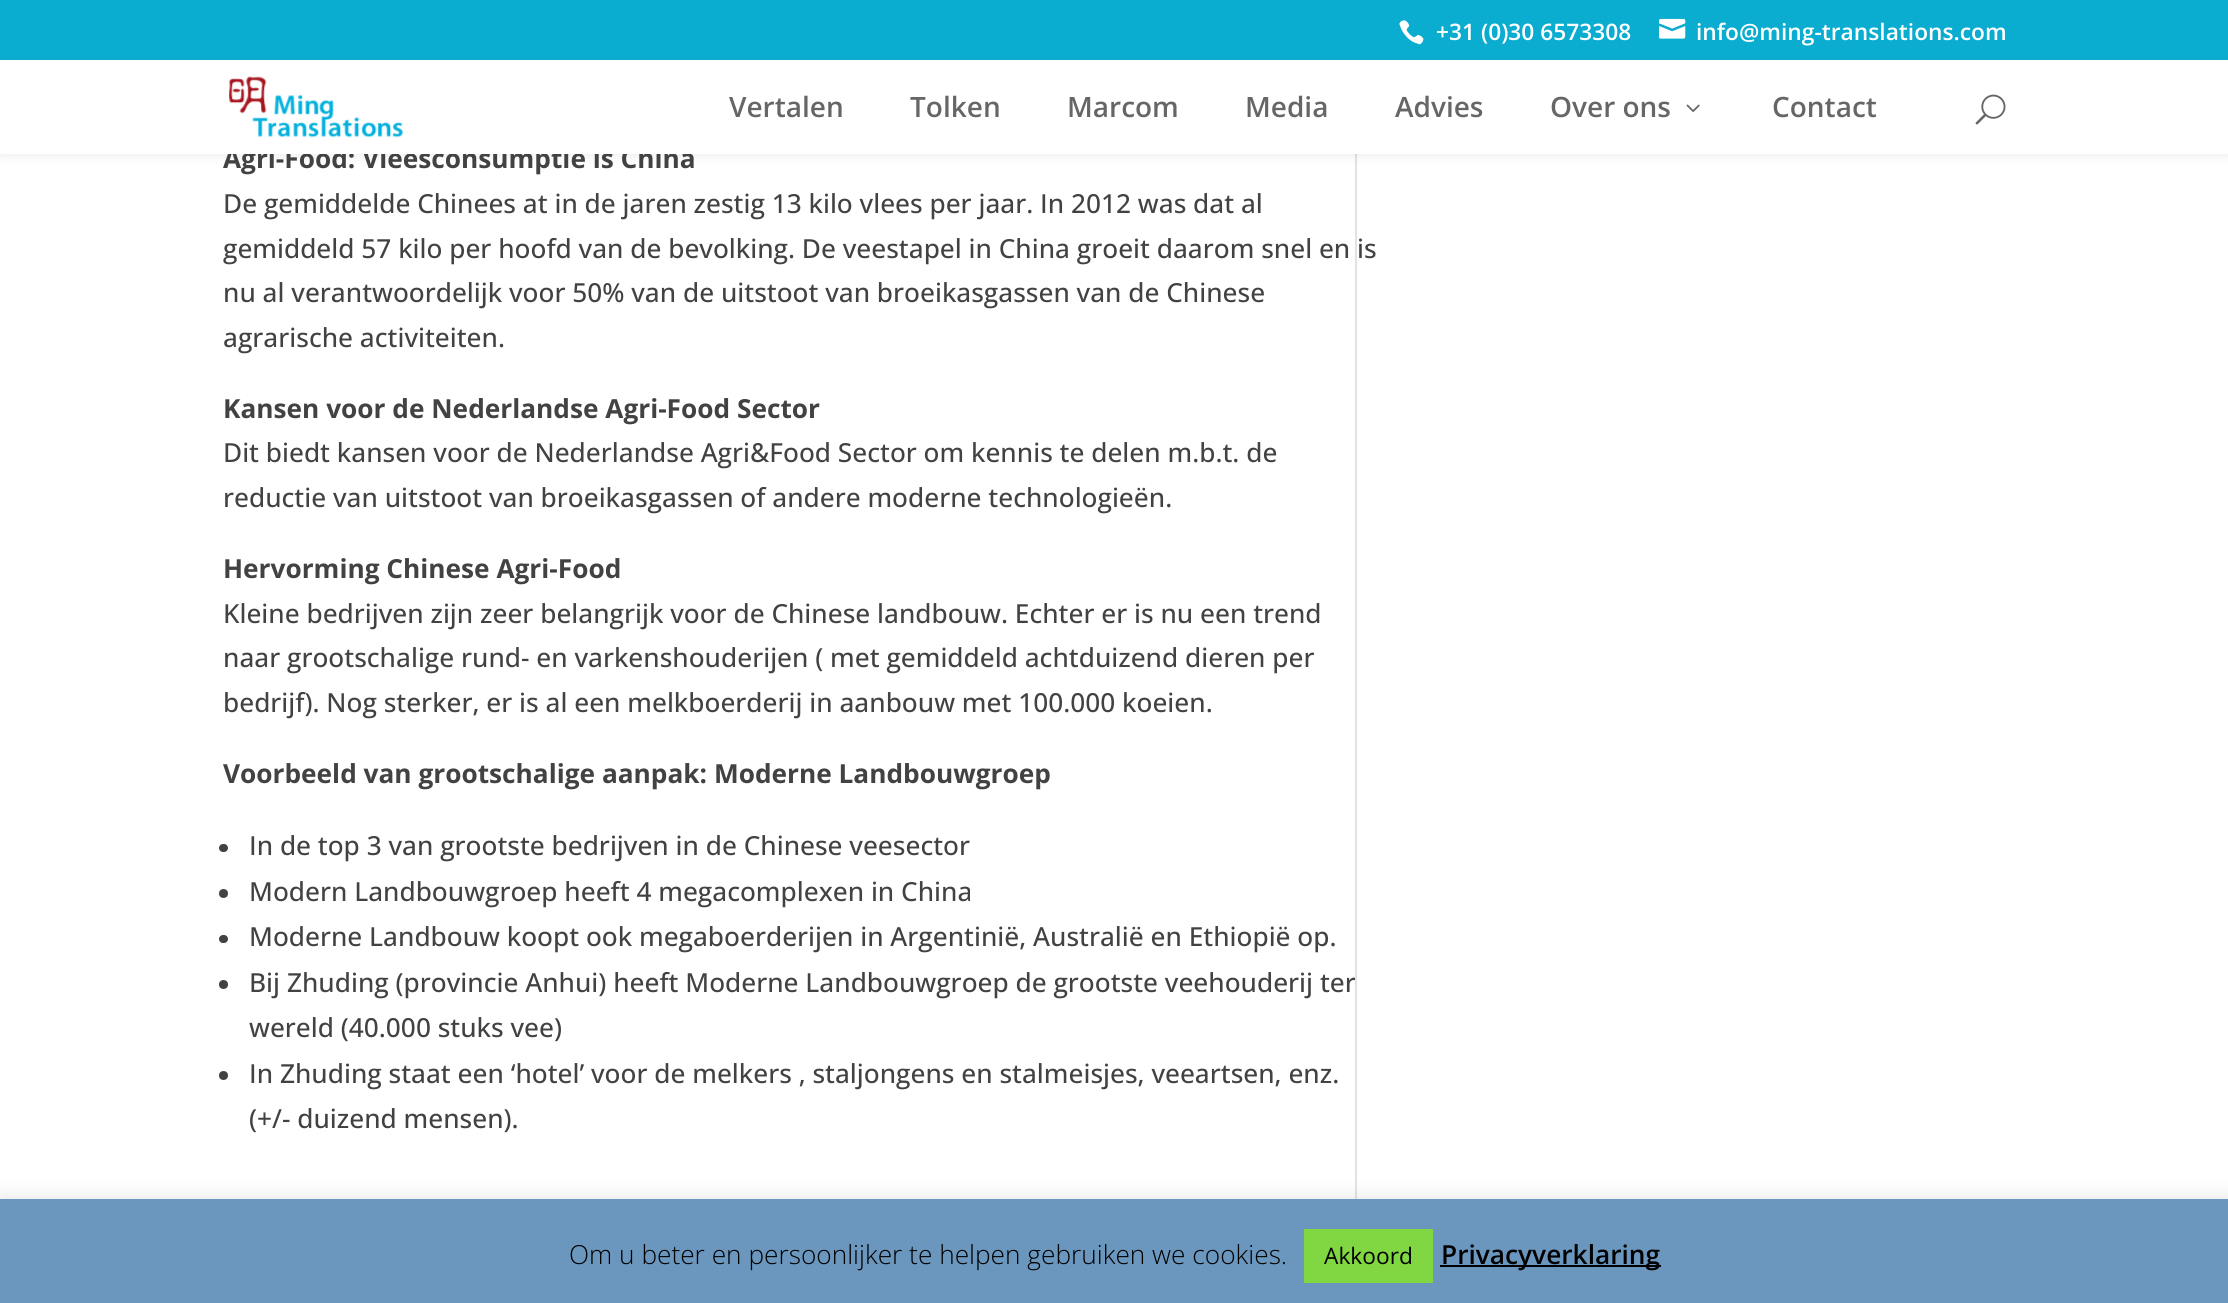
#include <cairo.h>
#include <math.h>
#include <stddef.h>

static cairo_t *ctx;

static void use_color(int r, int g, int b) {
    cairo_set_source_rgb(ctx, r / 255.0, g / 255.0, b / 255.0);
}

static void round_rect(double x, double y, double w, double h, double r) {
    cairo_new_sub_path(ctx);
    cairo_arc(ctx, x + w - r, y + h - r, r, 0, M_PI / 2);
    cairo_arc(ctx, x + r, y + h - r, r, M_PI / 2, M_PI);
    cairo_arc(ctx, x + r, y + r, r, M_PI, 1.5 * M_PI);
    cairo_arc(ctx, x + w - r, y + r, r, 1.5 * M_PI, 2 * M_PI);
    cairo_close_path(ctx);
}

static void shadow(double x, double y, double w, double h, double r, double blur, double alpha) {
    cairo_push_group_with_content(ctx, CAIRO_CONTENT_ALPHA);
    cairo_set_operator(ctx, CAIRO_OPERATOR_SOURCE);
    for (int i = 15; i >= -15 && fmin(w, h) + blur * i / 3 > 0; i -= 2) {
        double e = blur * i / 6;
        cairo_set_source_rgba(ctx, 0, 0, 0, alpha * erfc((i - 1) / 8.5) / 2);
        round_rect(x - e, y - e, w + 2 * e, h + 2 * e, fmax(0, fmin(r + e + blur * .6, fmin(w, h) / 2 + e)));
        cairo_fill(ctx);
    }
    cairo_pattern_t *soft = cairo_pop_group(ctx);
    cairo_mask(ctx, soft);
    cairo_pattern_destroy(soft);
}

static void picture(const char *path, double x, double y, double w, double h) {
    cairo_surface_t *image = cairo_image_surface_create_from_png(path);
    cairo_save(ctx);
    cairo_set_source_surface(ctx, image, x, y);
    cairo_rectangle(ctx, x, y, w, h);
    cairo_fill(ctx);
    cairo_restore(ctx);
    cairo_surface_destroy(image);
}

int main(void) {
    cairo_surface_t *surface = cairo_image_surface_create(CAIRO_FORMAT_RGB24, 2228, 1303);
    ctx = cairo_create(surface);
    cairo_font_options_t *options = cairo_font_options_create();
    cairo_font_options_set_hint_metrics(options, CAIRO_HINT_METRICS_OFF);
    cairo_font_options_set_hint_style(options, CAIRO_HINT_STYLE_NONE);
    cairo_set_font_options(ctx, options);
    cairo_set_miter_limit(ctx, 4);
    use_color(255, 255, 255);
    cairo_paint(ctx);
    cairo_select_font_face(ctx, "Open Sans Medium", CAIRO_FONT_SLANT_NORMAL, CAIRO_FONT_WEIGHT_NORMAL);
    cairo_set_font_size(ctx, 26.25);
    use_color(66, 66, 66);
    cairo_move_to(ctx, 223, 258);
    cairo_show_text(ctx, "gemiddeld 57 kilo per hoofd van de bevolking. De veestapel in China groeit daarom snel en is");
    cairo_move_to(ctx, 249, 992);
    cairo_show_text(ctx, "Bij Zhuding (provincie Anhui) heeft Moderne Landbouwgroep de grootste veehouderij ter");
    use_color(226, 226, 226);
    cairo_rectangle(ctx, 1355, 154, 2, 1045);
    cairo_fill(ctx);
    use_color(0, 0, 0);
    shadow(0, 60, 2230, 94, 0, 6, 0.1);
    use_color(10, 172, 208);
    cairo_rectangle(ctx, 0, 0, 2228, 60);
    cairo_fill(ctx);
    picture("img1.png", 1399, 20, 25, 25);
    cairo_select_font_face(ctx, "Open Sans SemiBold", CAIRO_FONT_SLANT_NORMAL, CAIRO_FONT_WEIGHT_NORMAL);
    cairo_set_font_size(ctx, 22.75);
    use_color(255, 255, 255);
    cairo_move_to(ctx, 1436, 40);
    cairo_show_text(ctx, "+31 (0)30 6573308");
    picture("img2.png", 1659, 18, 27, 21);
    cairo_move_to(ctx, 1696, 40);
    cairo_show_text(ctx, "info@ming-translations.com");
    cairo_select_font_face(ctx, "Open Sans", CAIRO_FONT_SLANT_NORMAL, CAIRO_FONT_WEIGHT_BOLD);
    cairo_set_font_size(ctx, 26.25);
    use_color(66, 66, 66);
    cairo_move_to(ctx, 223, 168);
    cairo_show_text(ctx, "Agri-Food: Vleesconsumptie is China");
    use_color(255, 255, 255);
    cairo_rectangle(ctx, 0, 60, 2228, 94);
    cairo_fill(ctx);
    picture("img3.png", 229, 76, 175, 62);
    cairo_select_font_face(ctx, "Open Sans SemiBold", CAIRO_FONT_SLANT_NORMAL, CAIRO_FONT_WEIGHT_NORMAL);
    cairo_set_font_size(ctx, 28);
    use_color(102, 102, 102);
    cairo_move_to(ctx, 729, 117);
    cairo_show_text(ctx, "Vertalen");
    cairo_move_to(ctx, 910, 117);
    cairo_show_text(ctx, "Tolken");
    cairo_move_to(ctx, 1067, 117);
    cairo_show_text(ctx, "Marcom");
    cairo_move_to(ctx, 1245, 117);
    cairo_show_text(ctx, "Media");
    cairo_move_to(ctx, 1395, 117);
    cairo_show_text(ctx, "Advies");
    cairo_move_to(ctx, 1550, 117);
    cairo_show_text(ctx, "Over ons");
    picture("img4.png", 1686, 104, 14, 8);
    cairo_move_to(ctx, 1772, 117);
    cairo_show_text(ctx, "Contact");
    picture("img5.png", 1975, 94, 31, 31);
    cairo_select_font_face(ctx, "Open Sans Medium", CAIRO_FONT_SLANT_NORMAL, CAIRO_FONT_WEIGHT_NORMAL);
    cairo_set_font_size(ctx, 26.25);
    use_color(66, 66, 66);
    cairo_move_to(ctx, 223, 213);
    cairo_show_text(ctx, "De gemiddelde Chinees at in de jaren zestig 13 kilo vlees per jaar. In 2012 was dat al");
    cairo_move_to(ctx, 223, 302);
    cairo_show_text(ctx, "nu al verantwoordelijk voor 50% van de uitstoot van broeikasgassen van de Chinese");
    cairo_move_to(ctx, 223, 347);
    cairo_show_text(ctx, "agrarische activiteiten.");
    cairo_select_font_face(ctx, "Open Sans", CAIRO_FONT_SLANT_NORMAL, CAIRO_FONT_WEIGHT_BOLD);
    cairo_move_to(ctx, 223, 418);
    cairo_show_text(ctx, "Kansen voor de Nederlandse Agri-Food Sector");
    cairo_select_font_face(ctx, "Open Sans Medium", CAIRO_FONT_SLANT_NORMAL, CAIRO_FONT_WEIGHT_NORMAL);
    cairo_move_to(ctx, 223, 462);
    cairo_show_text(ctx, "Dit biedt kansen voor de Nederlandse Agri&Food Sector om kennis te delen m.b.t. de");
    cairo_move_to(ctx, 223, 507);
    cairo_show_text(ctx, "reductie van uitstoot van broeikasgassen of andere moderne technologieën.");
    cairo_select_font_face(ctx, "Open Sans", CAIRO_FONT_SLANT_NORMAL, CAIRO_FONT_WEIGHT_BOLD);
    cairo_move_to(ctx, 223, 578);
    cairo_show_text(ctx, "Hervorming Chinese Agri-Food");
    cairo_select_font_face(ctx, "Open Sans Medium", CAIRO_FONT_SLANT_NORMAL, CAIRO_FONT_WEIGHT_NORMAL);
    cairo_move_to(ctx, 223, 623);
    cairo_show_text(ctx, "Kleine bedrijven zijn zeer belangrijk voor de Chinese landbouw. Echter er is nu een trend");
    cairo_move_to(ctx, 223, 667);
    cairo_show_text(ctx, "naar grootschalige rund- en varkenshouderijen ( met gemiddeld achtduizend dieren per");
    cairo_move_to(ctx, 223, 712);
    cairo_show_text(ctx, "bedrijf). Nog sterker, er is al een melkboerderij in aanbouw met 100.000 koeien.");
    cairo_select_font_face(ctx, "Open Sans", CAIRO_FONT_SLANT_NORMAL, CAIRO_FONT_WEIGHT_BOLD);
    cairo_move_to(ctx, 223, 783);
    cairo_show_text(ctx, "Voorbeeld van grootschalige aanpak: Moderne Landbouwgroep");
    round_rect(219, 844, 9, 8, 4);
    cairo_fill(ctx);
    cairo_select_font_face(ctx, "Open Sans Medium", CAIRO_FONT_SLANT_NORMAL, CAIRO_FONT_WEIGHT_NORMAL);
    cairo_move_to(ctx, 249, 855);
    cairo_show_text(ctx, "In de top 3 van grootste bedrijven in de Chinese veesector");
    cairo_new_path(ctx);
    cairo_arc(ctx, 223.5, 893.5, 4.5, 0, 2 * M_PI);
    cairo_fill(ctx);
    cairo_move_to(ctx, 249, 901);
    cairo_show_text(ctx, "Modern Landbouwgroep heeft 4 megacomplexen in China");
    round_rect(219, 935, 9, 8, 4);
    cairo_fill(ctx);
    cairo_move_to(ctx, 249, 946);
    cairo_show_text(ctx, "Moderne Landbouw koopt ook megaboerderijen in Argentinië, Australië en Ethiopië op.");
    cairo_new_path(ctx);
    cairo_arc(ctx, 223.5, 984.5, 4.5, 0, 2 * M_PI);
    cairo_fill(ctx);
    cairo_move_to(ctx, 249, 1037);
    cairo_show_text(ctx, "wereld (40.000 stuks vee)");
    cairo_new_path(ctx);
    cairo_arc(ctx, 223.5, 1075.5, 4.5, 0, 2 * M_PI);
    cairo_fill(ctx);
    cairo_move_to(ctx, 249, 1083);
    cairo_show_text(ctx, "In Zhuding staat een ‘hotel’ voor de melkers , staljongens en stalmeisjes, veeartsen, enz.");
    cairo_move_to(ctx, 249, 1128);
    cairo_show_text(ctx, "(+/- duizend mensen).");
    use_color(172, 171, 171);
    shadow(0, 1197, 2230, 105, 0, 9, 0.3);
    use_color(107, 151, 191);
    cairo_rectangle(ctx, 0, 1199, 2228, 104);
    cairo_fill(ctx);
    cairo_select_font_face(ctx, "Open Sans Light", CAIRO_FONT_SLANT_NORMAL, CAIRO_FONT_WEIGHT_NORMAL);
    use_color(0, 0, 0);
    cairo_move_to(ctx, 569, 1264);
    cairo_show_text(ctx, "Om u beter en persoonlijker te helpen gebruiken we cookies.");
    use_color(129, 215, 66);
    cairo_rectangle(ctx, 1304, 1229, 129, 54);
    cairo_fill(ctx);
    cairo_select_font_face(ctx, "Open Sans", CAIRO_FONT_SLANT_NORMAL, CAIRO_FONT_WEIGHT_NORMAL);
    cairo_set_font_size(ctx, 22.75);
    use_color(0, 0, 0);
    cairo_move_to(ctx, 1324, 1264);
    cairo_show_text(ctx, "Akkoord");
    cairo_rectangle(ctx, 1440, 1265, 221, 2);
    cairo_fill(ctx);
    cairo_select_font_face(ctx, "Open Sans SemiBold", CAIRO_FONT_SLANT_NORMAL, CAIRO_FONT_WEIGHT_NORMAL);
    cairo_set_font_size(ctx, 26.25);
    cairo_move_to(ctx, 1441, 1264);
    cairo_show_text(ctx, "Privacyverklaring");
    cairo_surface_write_to_png(surface, "result.png");
    cairo_font_options_destroy(options);
    cairo_destroy(ctx);
    cairo_surface_destroy(surface);
    return 0;
}
